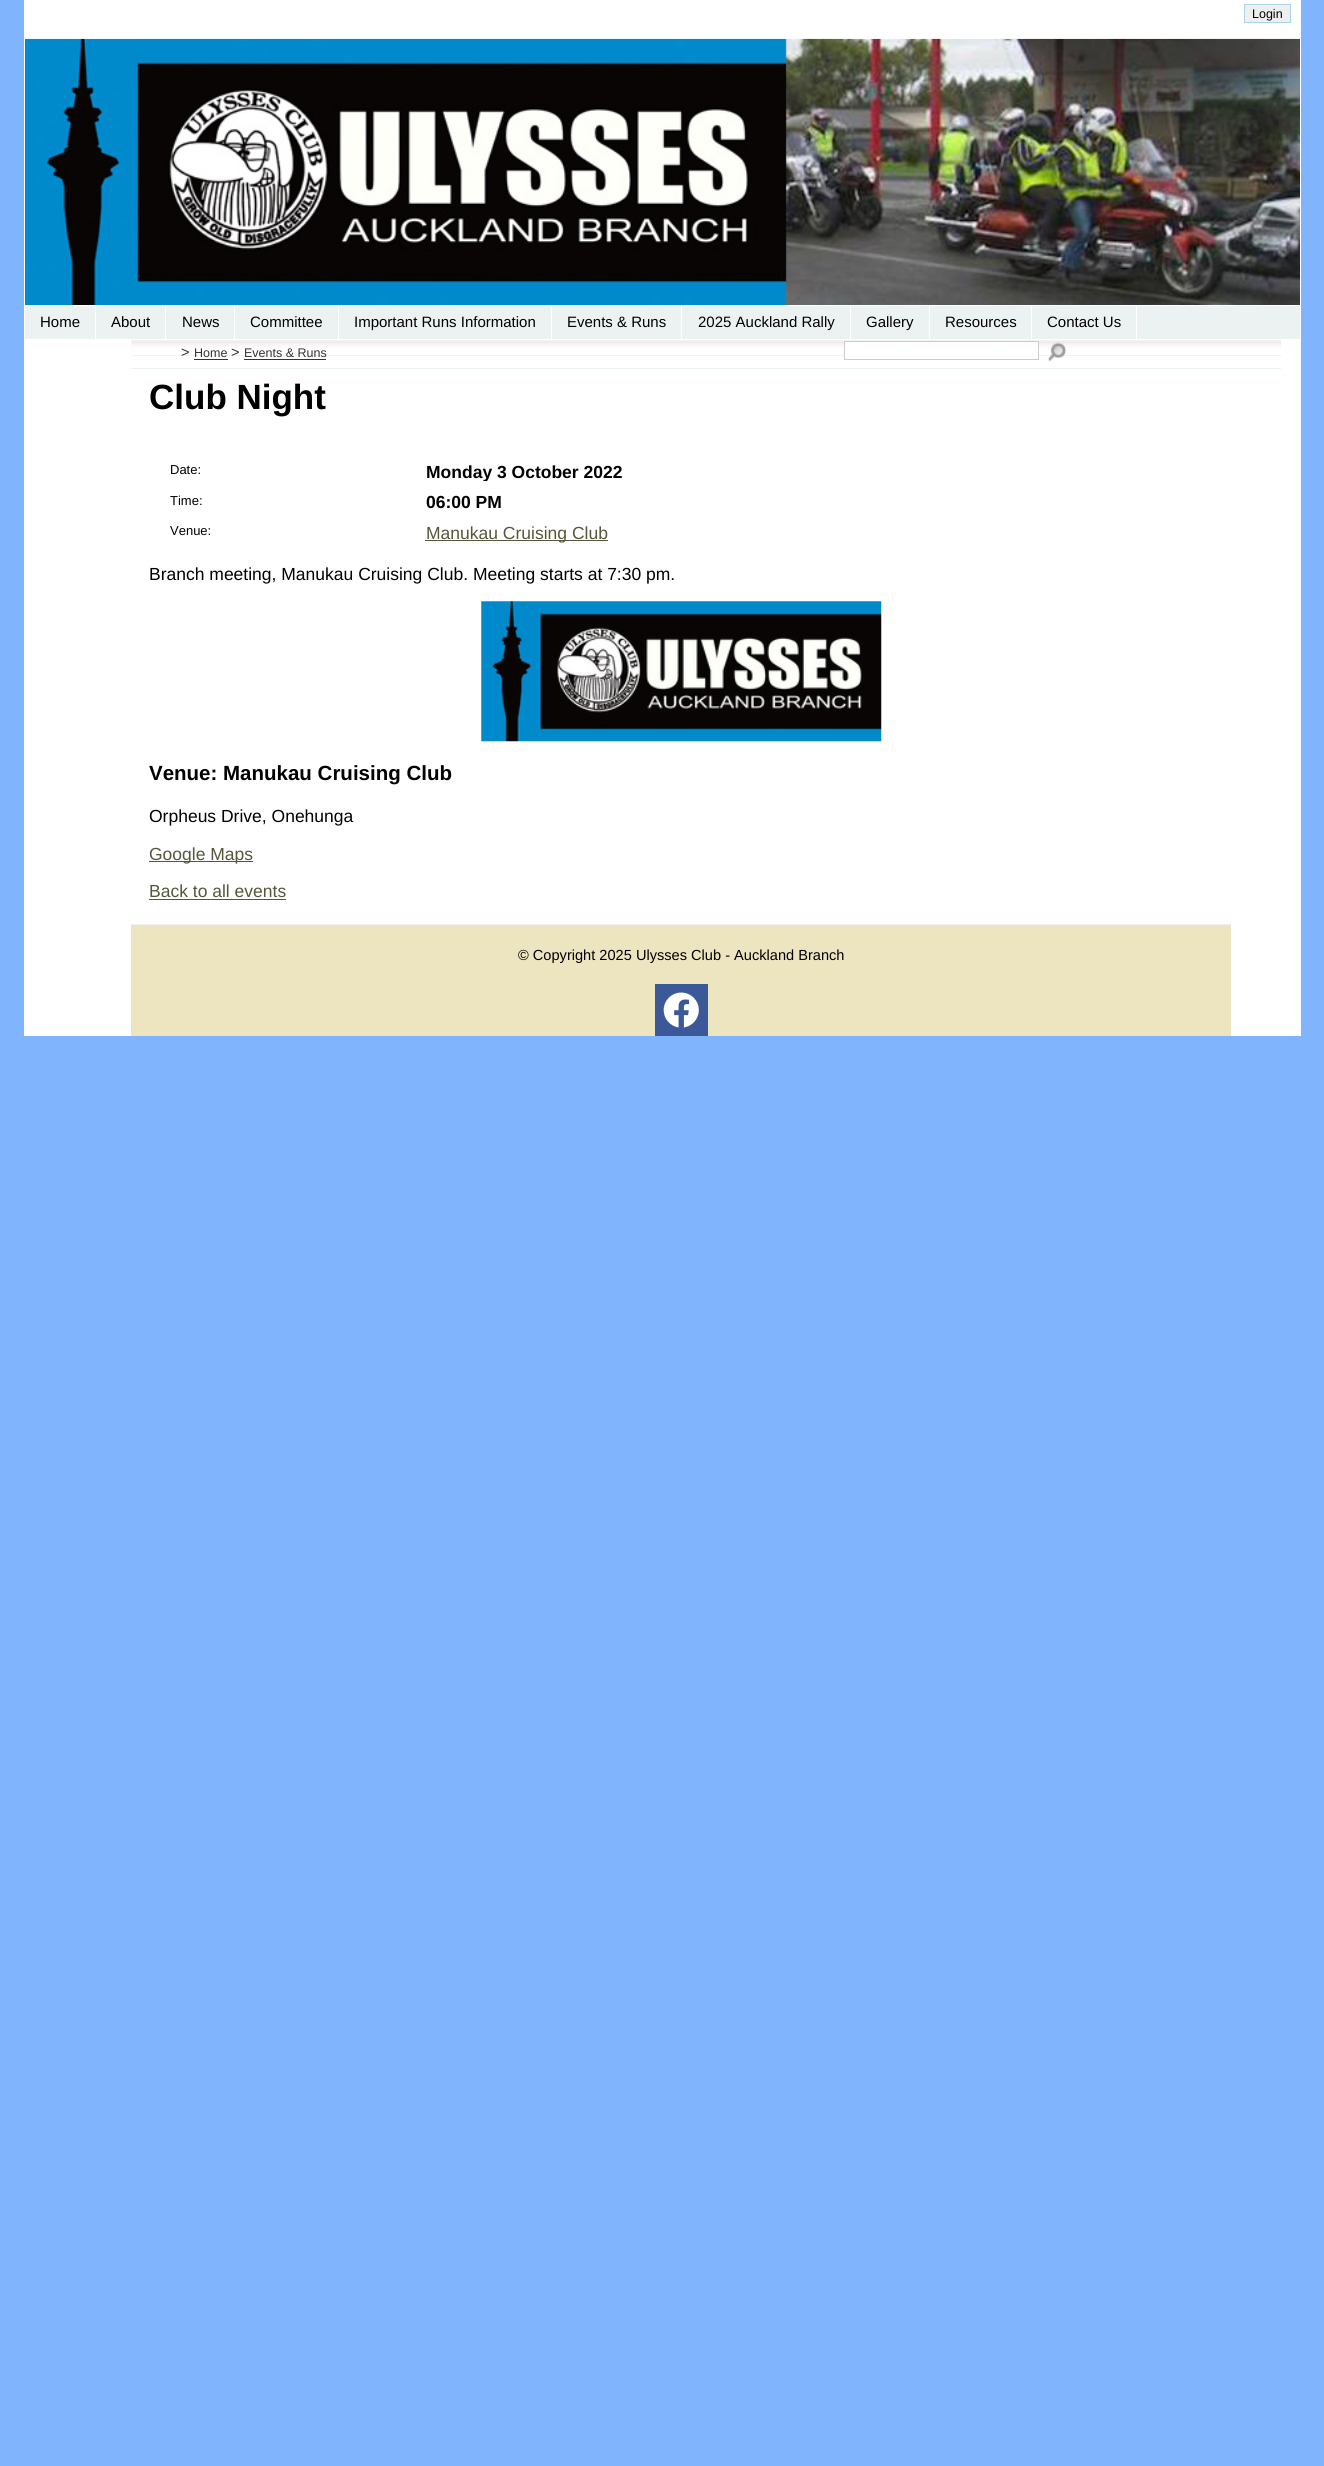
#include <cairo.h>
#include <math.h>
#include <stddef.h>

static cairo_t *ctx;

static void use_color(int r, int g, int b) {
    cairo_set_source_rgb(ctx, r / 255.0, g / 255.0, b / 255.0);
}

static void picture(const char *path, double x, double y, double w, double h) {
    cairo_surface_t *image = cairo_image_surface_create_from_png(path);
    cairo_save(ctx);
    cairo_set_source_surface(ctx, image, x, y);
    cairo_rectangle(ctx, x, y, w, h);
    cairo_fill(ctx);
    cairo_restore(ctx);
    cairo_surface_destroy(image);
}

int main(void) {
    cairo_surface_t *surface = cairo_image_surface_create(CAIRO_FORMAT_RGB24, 1324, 2466);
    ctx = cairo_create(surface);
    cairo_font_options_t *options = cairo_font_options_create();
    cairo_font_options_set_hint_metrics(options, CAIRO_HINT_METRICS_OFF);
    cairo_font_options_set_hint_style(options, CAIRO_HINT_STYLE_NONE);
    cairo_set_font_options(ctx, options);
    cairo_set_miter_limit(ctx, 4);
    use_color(128, 180, 252);
    cairo_paint(ctx);
    use_color(255, 255, 255);
    cairo_rectangle(ctx, 24, 0, 1277, 1036);
    cairo_fill(ctx);
    use_color(239, 239, 239);
    cairo_rectangle(ctx, 1244.5, 4.5, 46, 18);
    cairo_fill_preserve(ctx);
    use_color(170, 213, 230);
    cairo_set_line_width(ctx, 1);
    cairo_stroke(ctx);
    cairo_select_font_face(ctx, "Liberation Sans", CAIRO_FONT_SLANT_NORMAL, CAIRO_FONT_WEIGHT_NORMAL);
    cairo_set_font_size(ctx, 12.5);
    use_color(0, 0, 0);
    cairo_move_to(ctx, 1252, 18);
    cairo_show_text(ctx, "Login");
    picture("img1.png", 25, 38, 1275, 267);
    use_color(236, 242, 242);
    cairo_rectangle(ctx, 25, 306, 1275, 33);
    cairo_fill(ctx);
    use_color(255, 255, 255);
    cairo_rectangle(ctx, 95, 306, 1, 33);
    cairo_fill(ctx);
    cairo_set_font_size(ctx, 15);
    use_color(0, 0, 0);
    cairo_move_to(ctx, 40, 327);
    cairo_show_text(ctx, "Home");
    use_color(255, 255, 255);
    cairo_rectangle(ctx, 165, 306, 1, 33);
    cairo_fill(ctx);
    use_color(0, 0, 0);
    cairo_move_to(ctx, 111, 327);
    cairo_show_text(ctx, "About");
    use_color(255, 255, 255);
    cairo_rectangle(ctx, 234, 306, 1, 33);
    cairo_fill(ctx);
    use_color(0, 0, 0);
    cairo_move_to(ctx, 182, 327);
    cairo_show_text(ctx, "News");
    use_color(255, 255, 255);
    cairo_rectangle(ctx, 338, 306, 1, 33);
    cairo_fill(ctx);
    use_color(0, 0, 0);
    cairo_move_to(ctx, 250, 327);
    cairo_show_text(ctx, "Committee");
    use_color(255, 255, 255);
    cairo_rectangle(ctx, 551, 306, 1, 33);
    cairo_fill(ctx);
    use_color(0, 0, 0);
    cairo_move_to(ctx, 354, 327);
    cairo_show_text(ctx, "Important Runs Information");
    use_color(255, 255, 255);
    cairo_rectangle(ctx, 681, 306, 1, 33);
    cairo_fill(ctx);
    use_color(0, 0, 0);
    cairo_move_to(ctx, 567, 327);
    cairo_show_text(ctx, "Events & Runs");
    use_color(255, 255, 255);
    cairo_rectangle(ctx, 850, 306, 1, 33);
    cairo_fill(ctx);
    use_color(0, 0, 0);
    cairo_move_to(ctx, 698, 327);
    cairo_show_text(ctx, "2025 Auckland Rally");
    use_color(255, 255, 255);
    cairo_rectangle(ctx, 929, 306, 1, 33);
    cairo_fill(ctx);
    use_color(0, 0, 0);
    cairo_move_to(ctx, 866, 327);
    cairo_show_text(ctx, "Gallery");
    use_color(255, 255, 255);
    cairo_rectangle(ctx, 1031, 306, 1, 33);
    cairo_fill(ctx);
    use_color(0, 0, 0);
    cairo_move_to(ctx, 945, 327);
    cairo_show_text(ctx, "Resources");
    use_color(255, 255, 255);
    cairo_rectangle(ctx, 1136, 306, 1, 33);
    cairo_fill(ctx);
    use_color(0, 0, 0);
    cairo_move_to(ctx, 1047, 327);
    cairo_show_text(ctx, "Contact Us");
    picture("img2.png", 131, 340, 1150, 16);
    use_color(236, 242, 242);
    cairo_rectangle(ctx, 131, 368, 1150, 1);
    cairo_fill(ctx);
    cairo_set_font_size(ctx, 14.6);
    use_color(51, 51, 51);
    cairo_move_to(ctx, 181, 357);
    cairo_show_text(ctx, ">");
    cairo_set_font_size(ctx, 12.5);
    cairo_move_to(ctx, 194, 357);
    cairo_show_text(ctx, "Home");
    cairo_rectangle(ctx, 194, 359, 34, 1);
    cairo_fill(ctx);
    cairo_set_font_size(ctx, 14.6);
    cairo_move_to(ctx, 231, 357);
    cairo_show_text(ctx, ">");
    cairo_set_font_size(ctx, 12.5);
    cairo_move_to(ctx, 244, 357);
    cairo_show_text(ctx, "Events & Runs");
    cairo_rectangle(ctx, 244, 359, 82, 1);
    cairo_fill(ctx);
    use_color(255, 255, 255);
    cairo_rectangle(ctx, 845, 342, 193, 14);
    cairo_fill(ctx);
    cairo_rectangle(ctx, 844.5, 341.5, 194, 18);
    use_color(204, 204, 204);
    cairo_stroke(ctx);
    picture("img3.png", 1048, 342, 19, 20);
    cairo_select_font_face(ctx, "Liberation Sans", CAIRO_FONT_SLANT_NORMAL, CAIRO_FONT_WEIGHT_BOLD);
    cairo_set_font_size(ctx, 35);
    use_color(0, 0, 0);
    cairo_move_to(ctx, 149, 409);
    cairo_show_text(ctx, "Club Night");
    cairo_select_font_face(ctx, "Liberation Sans", CAIRO_FONT_SLANT_NORMAL, CAIRO_FONT_WEIGHT_NORMAL);
    cairo_set_font_size(ctx, 13);
    cairo_move_to(ctx, 170, 474);
    cairo_show_text(ctx, "Date:");
    cairo_save(ctx);
    cairo_rectangle(ctx, 170, 461, 1023, 20);
    cairo_clip(ctx);
    cairo_select_font_face(ctx, "Liberation Sans", CAIRO_FONT_SLANT_NORMAL, CAIRO_FONT_WEIGHT_BOLD);
    cairo_set_font_size(ctx, 17.5);
    cairo_move_to(ctx, 426, 478);
    cairo_show_text(ctx, "Monday 3 October 2022");
    cairo_restore(ctx);
    cairo_move_to(ctx, 170, 505);
    cairo_show_text(ctx, "Time:");
    cairo_select_font_face(ctx, "Liberation Sans", CAIRO_FONT_SLANT_NORMAL, CAIRO_FONT_WEIGHT_BOLD);
    cairo_set_font_size(ctx, 17.5);
    cairo_move_to(ctx, 426, 508);
    cairo_show_text(ctx, "06:00 PM");
    cairo_select_font_face(ctx, "Liberation Sans", CAIRO_FONT_SLANT_NORMAL, CAIRO_FONT_WEIGHT_NORMAL);
    cairo_set_font_size(ctx, 13);
    cairo_move_to(ctx, 170, 535);
    cairo_show_text(ctx, "Venue:");
    use_color(86, 86, 58);
    cairo_rectangle(ctx, 425, 540, 183, 1);
    cairo_fill(ctx);
    cairo_set_font_size(ctx, 17.5);
    cairo_move_to(ctx, 426, 539);
    cairo_show_text(ctx, "Manukau Cruising Club");
    use_color(0, 0, 0);
    cairo_move_to(ctx, 149, 580);
    cairo_show_text(ctx, "Branch meeting, Manukau Cruising Club. Meeting starts at 7:30 pm.");
    picture("img4.png", 481, 601, 401, 141);
    cairo_select_font_face(ctx, "Liberation Sans", CAIRO_FONT_SLANT_NORMAL, CAIRO_FONT_WEIGHT_BOLD);
    cairo_set_font_size(ctx, 20.5);
    cairo_move_to(ctx, 149, 780);
    cairo_show_text(ctx, "Venue: Manukau Cruising Club");
    cairo_select_font_face(ctx, "Liberation Sans", CAIRO_FONT_SLANT_NORMAL, CAIRO_FONT_WEIGHT_NORMAL);
    cairo_set_font_size(ctx, 17.5);
    cairo_move_to(ctx, 149, 822);
    cairo_show_text(ctx, "Orpheus Drive, Onehunga");
    use_color(86, 86, 58);
    cairo_rectangle(ctx, 149, 861, 104, 1);
    cairo_fill(ctx);
    cairo_move_to(ctx, 149, 860);
    cairo_show_text(ctx, "Google Maps");
    cairo_move_to(ctx, 149, 897);
    cairo_show_text(ctx, "Back to all events");
    cairo_rectangle(ctx, 149, 899, 137, 1);
    cairo_fill(ctx);
    use_color(237, 229, 192);
    cairo_rectangle(ctx, 131, 925, 1100, 111);
    cairo_fill(ctx);
    use_color(236, 242, 242);
    cairo_rectangle(ctx, 131, 924, 1100, 1);
    cairo_fill(ctx);
    cairo_set_font_size(ctx, 14.6);
    use_color(0, 0, 0);
    cairo_move_to(ctx, 518, 960);
    cairo_show_text(ctx, "© Copyright 2025 Ulysses Club - Auckland Branch");
    use_color(59, 89, 152);
    cairo_rectangle(ctx, 655, 984, 53, 52);
    cairo_fill(ctx);
    picture("img5.png", 663, 992, 36, 36);
    cairo_surface_write_to_png(surface, "result.png");
    cairo_font_options_destroy(options);
    cairo_destroy(ctx);
    cairo_surface_destroy(surface);
    return 0;
}
